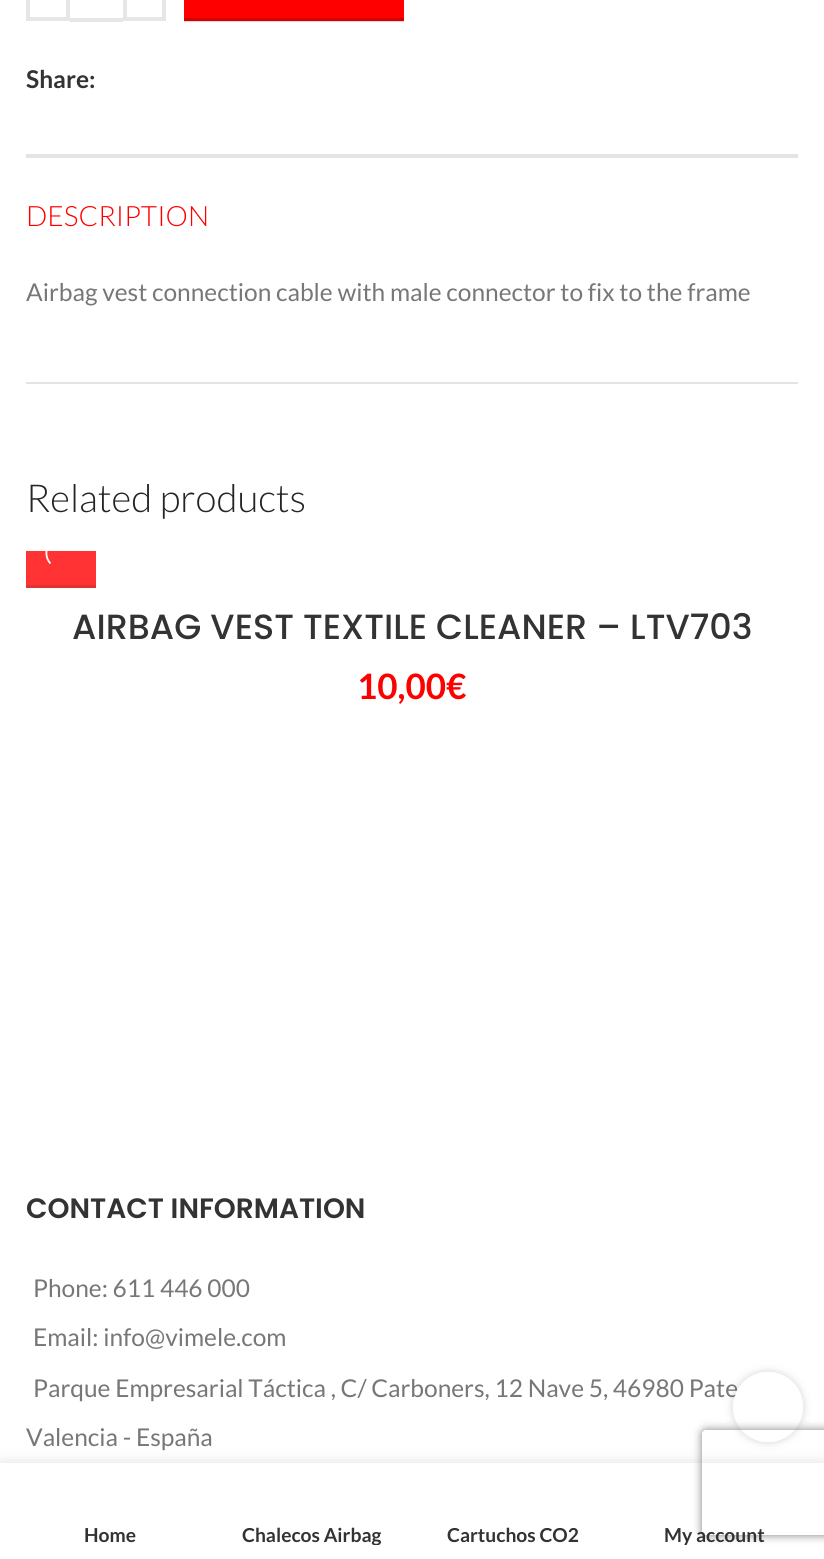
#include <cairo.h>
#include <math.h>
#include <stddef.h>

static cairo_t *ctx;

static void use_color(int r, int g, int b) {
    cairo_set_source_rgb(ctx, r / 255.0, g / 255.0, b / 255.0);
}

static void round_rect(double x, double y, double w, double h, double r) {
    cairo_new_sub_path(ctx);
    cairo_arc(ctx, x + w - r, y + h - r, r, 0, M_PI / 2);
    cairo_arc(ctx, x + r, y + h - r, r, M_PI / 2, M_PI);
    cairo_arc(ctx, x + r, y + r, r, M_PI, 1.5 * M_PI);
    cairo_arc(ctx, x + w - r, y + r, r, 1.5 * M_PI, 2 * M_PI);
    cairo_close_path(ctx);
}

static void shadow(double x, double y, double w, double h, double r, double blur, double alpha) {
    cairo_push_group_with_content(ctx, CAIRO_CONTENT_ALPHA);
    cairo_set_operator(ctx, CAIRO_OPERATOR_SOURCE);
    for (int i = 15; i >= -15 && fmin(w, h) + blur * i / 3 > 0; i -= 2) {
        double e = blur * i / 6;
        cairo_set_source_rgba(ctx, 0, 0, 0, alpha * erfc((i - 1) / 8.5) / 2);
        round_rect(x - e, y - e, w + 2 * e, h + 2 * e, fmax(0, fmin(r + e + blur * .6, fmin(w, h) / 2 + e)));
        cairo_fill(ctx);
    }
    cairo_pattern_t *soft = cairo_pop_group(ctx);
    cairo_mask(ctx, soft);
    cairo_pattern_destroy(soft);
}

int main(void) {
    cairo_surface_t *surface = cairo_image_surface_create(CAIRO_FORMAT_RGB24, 824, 1559);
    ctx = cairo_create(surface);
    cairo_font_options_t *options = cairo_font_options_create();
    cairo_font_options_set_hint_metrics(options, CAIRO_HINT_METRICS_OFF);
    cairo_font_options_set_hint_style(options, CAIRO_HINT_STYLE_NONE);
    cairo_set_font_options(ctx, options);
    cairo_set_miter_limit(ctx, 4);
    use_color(255, 255, 255);
    cairo_paint(ctx);
    use_color(217, 217, 217);
    cairo_rectangle(ctx, 184, 21, 220, 1);
    cairo_fill(ctx);
    cairo_rectangle(ctx, 28, -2, 40, 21);
    use_color(230, 230, 230);
    cairo_set_line_width(ctx, 4);
    cairo_stroke(ctx);
    cairo_rectangle(ctx, 70, 18, 53, 4);
    cairo_fill(ctx);
    cairo_rectangle(ctx, 125, -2, 39, 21);
    cairo_stroke(ctx);
    use_color(255, 0, 0);
    cairo_rectangle(ctx, 184, 0, 220, 18);
    cairo_fill(ctx);
    use_color(217, 0, 0);
    cairo_rectangle(ctx, 184, 18, 220, 3);
    cairo_fill(ctx);
    cairo_select_font_face(ctx, "Lato", CAIRO_FONT_SLANT_NORMAL, CAIRO_FONT_WEIGHT_BOLD);
    cairo_set_font_size(ctx, 24.5);
    use_color(51, 51, 51);
    cairo_move_to(ctx, 26, 88);
    cairo_show_text(ctx, "Share:");
    use_color(228, 228, 228);
    cairo_rectangle(ctx, 26, 154, 772, 4);
    cairo_fill(ctx);
    cairo_rectangle(ctx, 26, 382, 772, 2);
    cairo_fill(ctx);
    cairo_select_font_face(ctx, "Lato Light", CAIRO_FONT_SLANT_NORMAL, CAIRO_FONT_WEIGHT_NORMAL);
    cairo_set_font_size(ctx, 28);
    use_color(255, 0, 0);
    cairo_move_to(ctx, 26, 226);
    cairo_show_text(ctx, "DESCRIPTION");
    cairo_select_font_face(ctx, "Lato", CAIRO_FONT_SLANT_NORMAL, CAIRO_FONT_WEIGHT_NORMAL);
    cairo_set_font_size(ctx, 24.5);
    use_color(119, 119, 119);
    cairo_move_to(ctx, 26, 301);
    cairo_show_text(ctx, "Airbag vest connection cable with male connector to fix to the frame");
    cairo_select_font_face(ctx, "Lato Light", CAIRO_FONT_SLANT_NORMAL, CAIRO_FONT_WEIGHT_NORMAL);
    cairo_set_font_size(ctx, 38.5);
    use_color(36, 36, 36);
    cairo_move_to(ctx, 26, 512);
    cairo_show_text(ctx, "Related products");
    use_color(255, 51, 51);
    cairo_rectangle(ctx, 26, 551, 70, 34);
    cairo_fill(ctx);
    use_color(224, 51, 51);
    cairo_rectangle(ctx, 26, 585, 70, 3);
    cairo_fill(ctx);
    cairo_save(ctx);
    cairo_rectangle(ctx, 26, 551, 70, 37);
    cairo_clip(ctx);
    cairo_new_path(ctx);
    cairo_move_to(ctx, 50.5, 563.5);
    cairo_curve_to(ctx, 45, 558, 45, 548, 50.5, 542.5);
    use_color(255, 255, 255);
    cairo_set_line_width(ctx, 1.8);
    cairo_stroke(ctx);
    cairo_restore(ctx);
    cairo_select_font_face(ctx, "Poppins Medium", CAIRO_FONT_SLANT_NORMAL, CAIRO_FONT_WEIGHT_NORMAL);
    cairo_set_font_size(ctx, 35);
    use_color(51, 51, 51);
    cairo_move_to(ctx, 72, 639);
    cairo_show_text(ctx, "AIRBAG VEST TEXTILE CLEANER – LTV703");
    cairo_select_font_face(ctx, "Lato", CAIRO_FONT_SLANT_NORMAL, CAIRO_FONT_WEIGHT_BOLD);
    use_color(255, 0, 0);
    cairo_move_to(ctx, 357, 699);
    cairo_show_text(ctx, "10,00€");
    cairo_select_font_face(ctx, "Poppins SemiBold", CAIRO_FONT_SLANT_NORMAL, CAIRO_FONT_WEIGHT_NORMAL);
    cairo_set_font_size(ctx, 28);
    use_color(51, 51, 51);
    cairo_move_to(ctx, 26, 1218);
    cairo_show_text(ctx, "CONTACT INFORMATION");
    cairo_select_font_face(ctx, "Lato", CAIRO_FONT_SLANT_NORMAL, CAIRO_FONT_WEIGHT_NORMAL);
    cairo_set_font_size(ctx, 24.5);
    use_color(119, 119, 119);
    cairo_move_to(ctx, 33, 1297);
    cairo_show_text(ctx, "Phone: 611 446 000");
    cairo_move_to(ctx, 33, 1346);
    cairo_show_text(ctx, "Email: info@vimele.com");
    cairo_move_to(ctx, 33, 1397);
    cairo_show_text(ctx, "Parque Empresarial Táctica , C/ Carboners, 12 Nave 5, 46980 Pate");
    cairo_move_to(ctx, 26, 1446);
    cairo_show_text(ctx, "Valencia - España");
    cairo_save(ctx);
    cairo_set_fill_rule(ctx, CAIRO_FILL_RULE_EVEN_ODD);
    cairo_new_path(ctx);
    cairo_move_to(ctx, 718, 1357);
    cairo_line_to(ctx, 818, 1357);
    cairo_line_to(ctx, 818, 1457);
    cairo_line_to(ctx, 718, 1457);
    cairo_close_path(ctx);
    cairo_move_to(ctx, 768, 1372);
    cairo_curve_to(ctx, 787.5, 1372, 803, 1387.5, 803, 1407);
    cairo_curve_to(ctx, 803, 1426.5, 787.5, 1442, 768, 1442);
    cairo_curve_to(ctx, 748.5, 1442, 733, 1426.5, 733, 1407);
    cairo_curve_to(ctx, 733, 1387.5, 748.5, 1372, 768, 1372);
    cairo_close_path(ctx);
    cairo_clip(ctx);
    use_color(0, 0, 0);
    shadow(733, 1372, 70, 70, 35, 4.5, 0.17);
    cairo_restore(ctx);
    cairo_set_source_rgba(ctx, 1, 1, 1, 0.9);
    cairo_arc(ctx, 768, 1407, 35, 0, 2 * M_PI);
    cairo_fill(ctx);
    use_color(0, 0, 0);
    shadow(0, 1463, 824, 96, 0, 8, 0.12);
    use_color(255, 255, 255);
    cairo_rectangle(ctx, 0, 1463, 824, 96);
    cairo_fill(ctx);
    cairo_save(ctx);
    cairo_set_fill_rule(ctx, CAIRO_FILL_RULE_EVEN_ODD);
    cairo_new_path(ctx);
    cairo_move_to(ctx, 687, 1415);
    cairo_line_to(ctx, 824, 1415);
    cairo_line_to(ctx, 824, 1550);
    cairo_line_to(ctx, 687, 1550);
    cairo_close_path(ctx);
    cairo_move_to(ctx, 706, 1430);
    cairo_line_to(ctx, 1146, 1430);
    cairo_curve_to(ctx, 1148, 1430, 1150, 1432, 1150, 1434);
    cairo_line_to(ctx, 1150, 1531);
    cairo_curve_to(ctx, 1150, 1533, 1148, 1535, 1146, 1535);
    cairo_line_to(ctx, 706, 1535);
    cairo_curve_to(ctx, 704, 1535, 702, 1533, 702, 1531);
    cairo_line_to(ctx, 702, 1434);
    cairo_curve_to(ctx, 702, 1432, 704, 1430, 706, 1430);
    cairo_close_path(ctx);
    cairo_clip(ctx);
    use_color(128, 128, 128);
    shadow(702, 1430, 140, 105, 4, 4.5, 1);
    cairo_restore(ctx);
    cairo_select_font_face(ctx, "Lato", CAIRO_FONT_SLANT_NORMAL, CAIRO_FONT_WEIGHT_BOLD);
    cairo_set_font_size(ctx, 19.25);
    use_color(51, 51, 51);
    cairo_move_to(ctx, 84, 1542);
    cairo_show_text(ctx, "Home");
    cairo_save(ctx);
    cairo_rectangle(ctx, 228, 1523, 168, 22);
    cairo_clip(ctx);
    cairo_move_to(ctx, 242, 1542);
    cairo_show_text(ctx, "Chalecos Airbag");
    cairo_restore(ctx);
    cairo_move_to(ctx, 447, 1542);
    cairo_show_text(ctx, "Cartuchos CO2");
    cairo_save(ctx);
    cairo_rectangle(ctx, 632, 1523, 166, 22);
    cairo_clip(ctx);
    cairo_move_to(ctx, 664, 1542);
    cairo_show_text(ctx, "My account");
    cairo_restore(ctx);
    cairo_surface_write_to_png(surface, "result.png");
    cairo_font_options_destroy(options);
    cairo_destroy(ctx);
    cairo_surface_destroy(surface);
    return 0;
}
